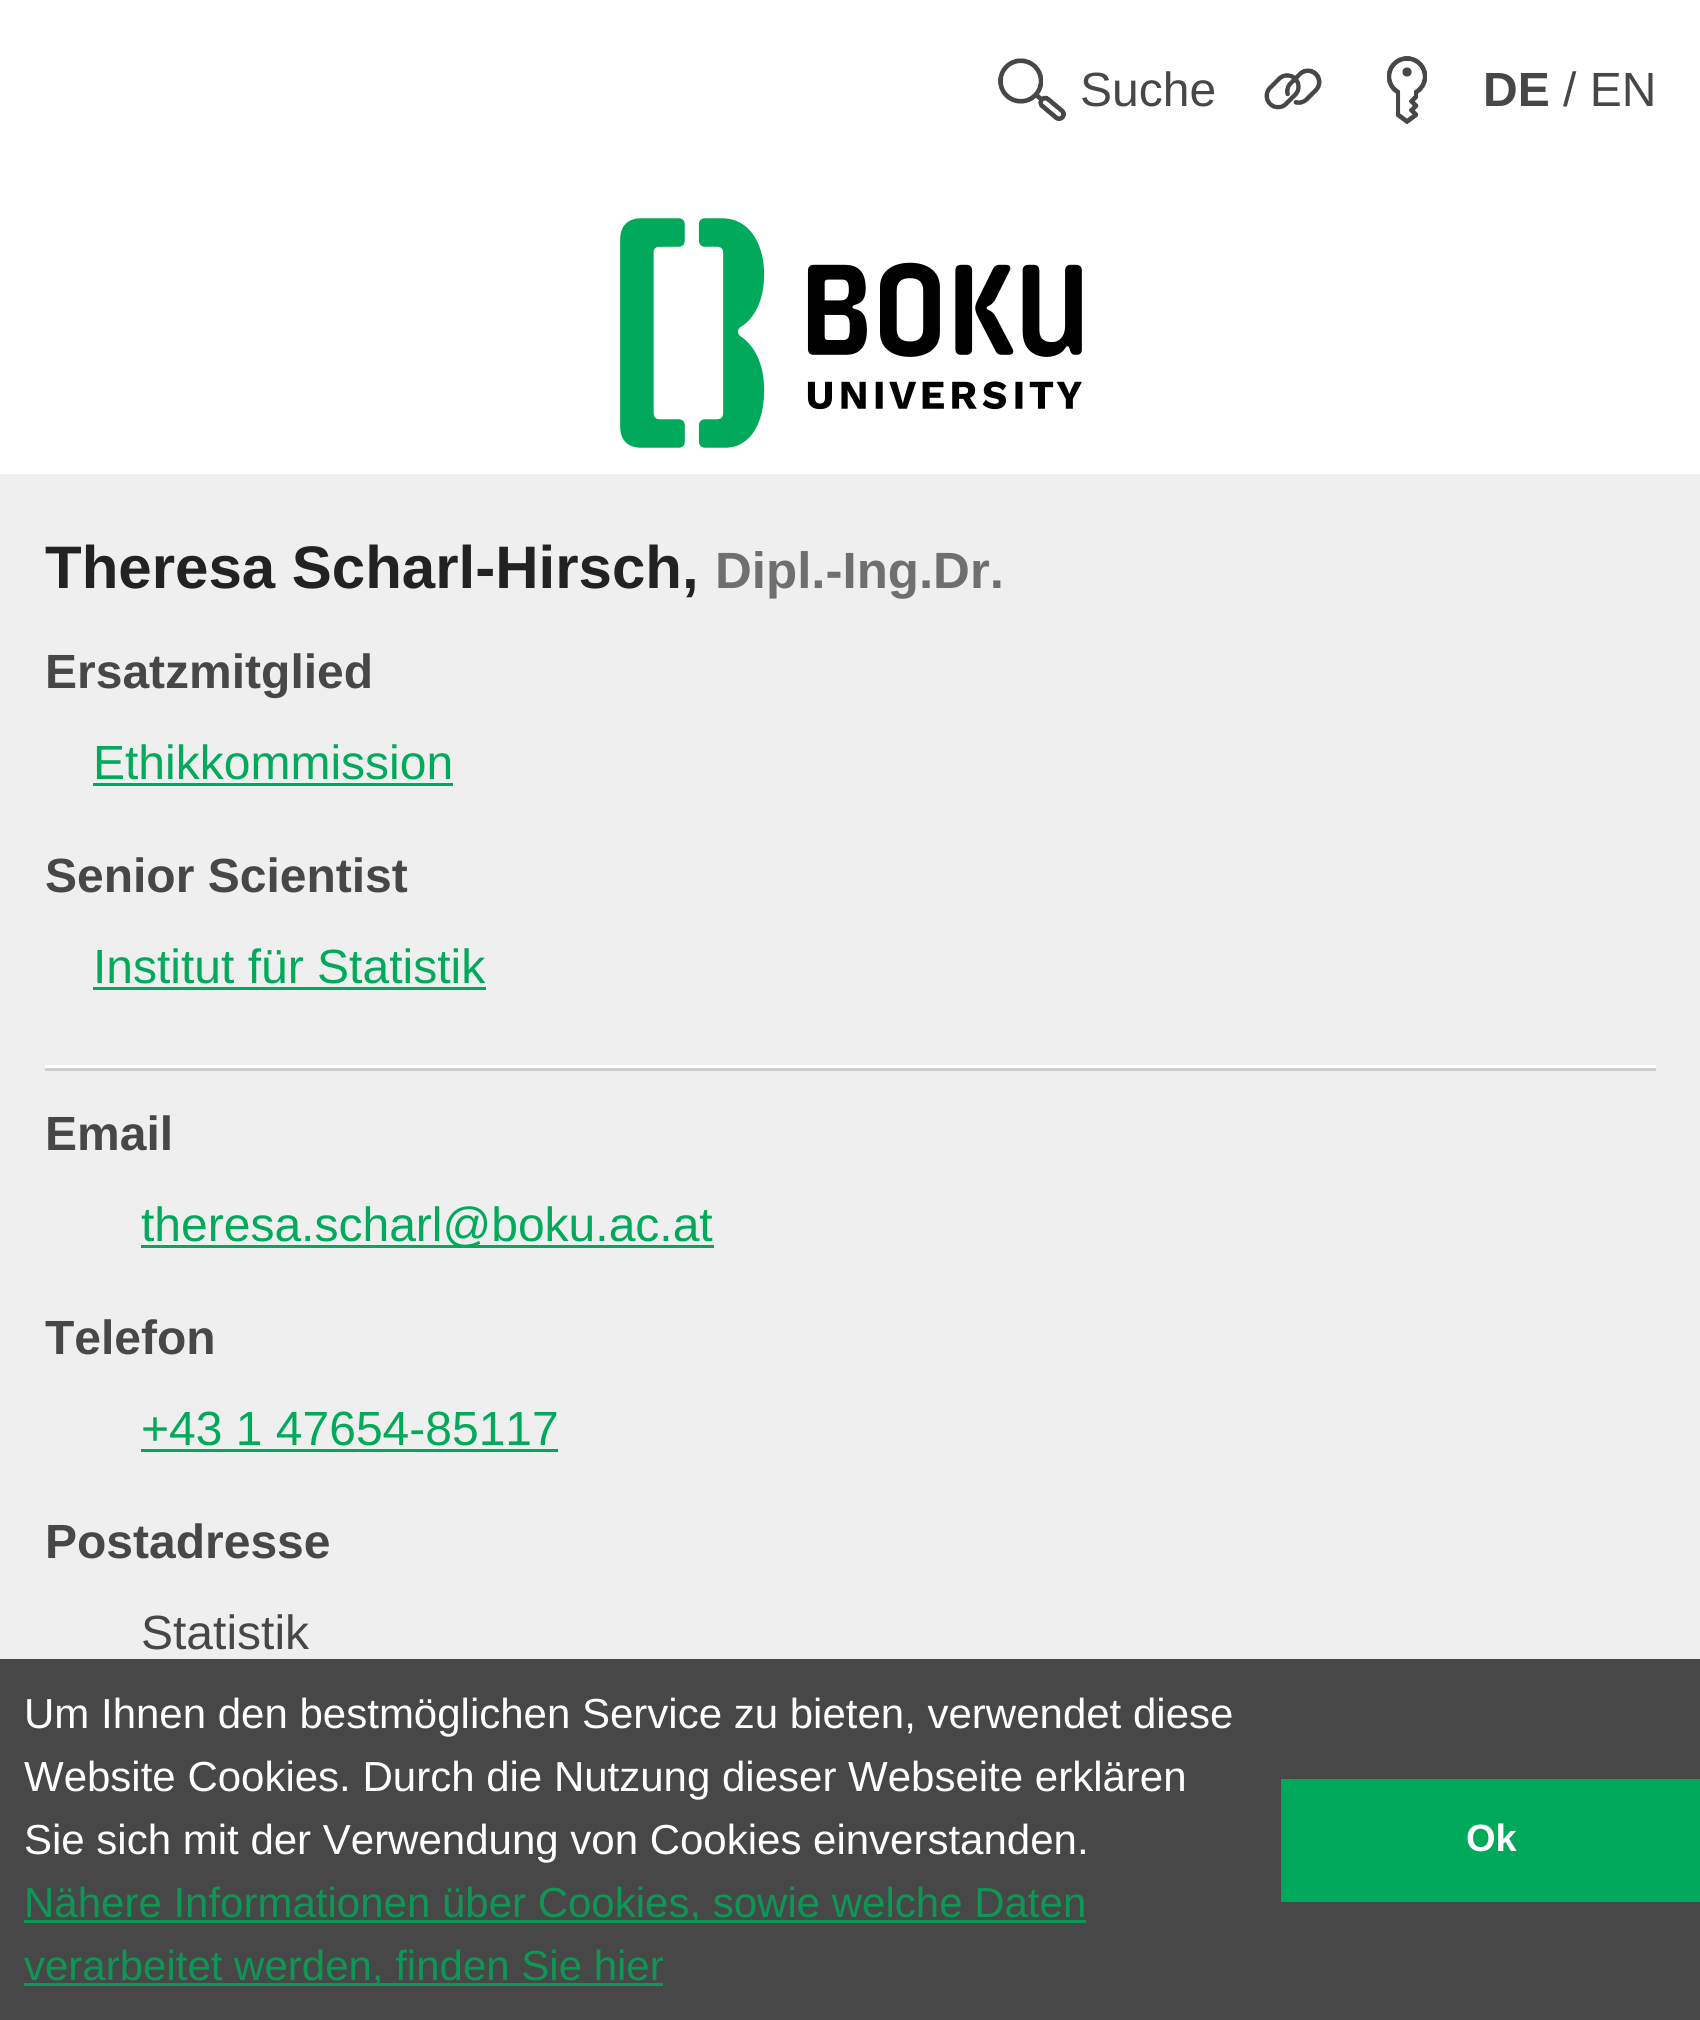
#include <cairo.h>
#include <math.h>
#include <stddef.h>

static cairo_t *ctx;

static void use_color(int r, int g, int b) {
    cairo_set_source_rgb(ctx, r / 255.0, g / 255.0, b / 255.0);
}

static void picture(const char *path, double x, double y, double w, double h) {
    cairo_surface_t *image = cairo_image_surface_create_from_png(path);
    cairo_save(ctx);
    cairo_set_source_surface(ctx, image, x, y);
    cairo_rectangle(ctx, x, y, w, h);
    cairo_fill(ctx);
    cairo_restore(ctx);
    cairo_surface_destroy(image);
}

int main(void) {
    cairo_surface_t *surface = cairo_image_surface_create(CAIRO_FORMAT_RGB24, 1700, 2020);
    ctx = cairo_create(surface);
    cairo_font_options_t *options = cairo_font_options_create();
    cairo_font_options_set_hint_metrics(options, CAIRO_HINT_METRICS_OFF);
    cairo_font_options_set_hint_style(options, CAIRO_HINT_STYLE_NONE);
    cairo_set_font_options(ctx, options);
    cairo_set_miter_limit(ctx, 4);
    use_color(239, 239, 239);
    cairo_paint(ctx);
    use_color(255, 255, 255);
    cairo_rectangle(ctx, 0, 0, 1700, 474);
    cairo_fill(ctx);
    picture("img1.png", 998, 58, 68, 63);
    cairo_select_font_face(ctx, "Liberation Sans", CAIRO_FONT_SLANT_NORMAL, CAIRO_FONT_WEIGHT_NORMAL);
    cairo_set_font_size(ctx, 48);
    use_color(71, 71, 71);
    cairo_move_to(ctx, 1080, 106);
    cairo_show_text(ctx, "Suche");
    picture("img2.png", 1264, 68, 58, 42);
    picture("img3.png", 1386, 55, 42, 69);
    cairo_select_font_face(ctx, "Liberation Sans", CAIRO_FONT_SLANT_NORMAL, CAIRO_FONT_WEIGHT_BOLD);
    cairo_move_to(ctx, 1483, 106);
    cairo_show_text(ctx, "DE");
    cairo_select_font_face(ctx, "Liberation Sans", CAIRO_FONT_SLANT_NORMAL, CAIRO_FONT_WEIGHT_NORMAL);
    cairo_move_to(ctx, 1563, 106);
    cairo_show_text(ctx, "/ EN");
    picture("img4.png", 620, 218, 462, 230);
    cairo_select_font_face(ctx, "Liberation Sans", CAIRO_FONT_SLANT_NORMAL, CAIRO_FONT_WEIGHT_BOLD);
    cairo_set_font_size(ctx, 60);
    use_color(34, 34, 34);
    cairo_move_to(ctx, 45, 588);
    cairo_show_text(ctx, "Theresa Scharl-Hirsch,");
    cairo_set_font_size(ctx, 51);
    use_color(111, 111, 111);
    cairo_move_to(ctx, 715, 588);
    cairo_show_text(ctx, "Dipl.-Ing.Dr.");
    cairo_set_font_size(ctx, 48);
    use_color(71, 71, 71);
    cairo_move_to(ctx, 45, 688);
    cairo_show_text(ctx, "Ersatzmitglied");
    cairo_select_font_face(ctx, "Liberation Sans", CAIRO_FONT_SLANT_NORMAL, CAIRO_FONT_WEIGHT_NORMAL);
    use_color(0, 170, 90);
    cairo_move_to(ctx, 93, 779);
    cairo_show_text(ctx, "Ethikkommission");
    cairo_rectangle(ctx, 93, 783, 360, 3);
    cairo_fill(ctx);
    cairo_select_font_face(ctx, "Liberation Sans", CAIRO_FONT_SLANT_NORMAL, CAIRO_FONT_WEIGHT_BOLD);
    use_color(71, 71, 71);
    cairo_move_to(ctx, 45, 892);
    cairo_show_text(ctx, "Senior Scientist");
    cairo_select_font_face(ctx, "Liberation Sans", CAIRO_FONT_SLANT_NORMAL, CAIRO_FONT_WEIGHT_NORMAL);
    use_color(0, 170, 90);
    cairo_move_to(ctx, 93, 983);
    cairo_show_text(ctx, "Institut für Statistik");
    cairo_rectangle(ctx, 93, 987, 393, 3);
    cairo_fill(ctx);
    use_color(255, 255, 255);
    cairo_rectangle(ctx, 45, 1065, 1611, 3);
    cairo_fill(ctx);
    use_color(205, 205, 205);
    cairo_rectangle(ctx, 45, 1068, 1611, 3);
    cairo_fill(ctx);
    cairo_select_font_face(ctx, "Liberation Sans", CAIRO_FONT_SLANT_NORMAL, CAIRO_FONT_WEIGHT_BOLD);
    use_color(71, 71, 71);
    cairo_move_to(ctx, 45, 1150);
    cairo_show_text(ctx, "Email");
    use_color(0, 170, 90);
    cairo_rectangle(ctx, 141, 1245, 573, 3);
    cairo_fill(ctx);
    cairo_select_font_face(ctx, "Liberation Sans", CAIRO_FONT_SLANT_NORMAL, CAIRO_FONT_WEIGHT_NORMAL);
    cairo_move_to(ctx, 141, 1241);
    cairo_show_text(ctx, "theresa.scharl@boku.ac.at");
    cairo_select_font_face(ctx, "Liberation Sans", CAIRO_FONT_SLANT_NORMAL, CAIRO_FONT_WEIGHT_BOLD);
    use_color(71, 71, 71);
    cairo_move_to(ctx, 45, 1354);
    cairo_show_text(ctx, "Telefon");
    cairo_select_font_face(ctx, "Liberation Sans", CAIRO_FONT_SLANT_NORMAL, CAIRO_FONT_WEIGHT_NORMAL);
    use_color(0, 170, 90);
    cairo_move_to(ctx, 141, 1445);
    cairo_show_text(ctx, "+43 1 47654-85117");
    cairo_rectangle(ctx, 141, 1449, 417, 3);
    cairo_fill(ctx);
    cairo_select_font_face(ctx, "Liberation Sans", CAIRO_FONT_SLANT_NORMAL, CAIRO_FONT_WEIGHT_BOLD);
    use_color(71, 71, 71);
    cairo_move_to(ctx, 45, 1558);
    cairo_show_text(ctx, "Postadresse");
    cairo_select_font_face(ctx, "Liberation Sans", CAIRO_FONT_SLANT_NORMAL, CAIRO_FONT_WEIGHT_NORMAL);
    cairo_move_to(ctx, 141, 1649);
    cairo_show_text(ctx, "Statistik");
    cairo_rectangle(ctx, 0, 1659, 1700, 361);
    cairo_fill(ctx);
    cairo_set_font_size(ctx, 42);
    use_color(255, 255, 255);
    cairo_move_to(ctx, 24, 1728);
    cairo_show_text(ctx, "Um Ihnen den bestmöglichen Service zu bieten, verwendet diese");
    cairo_move_to(ctx, 24, 1791);
    cairo_show_text(ctx, "Website Cookies. Durch die Nutzung dieser Webseite erklären");
    cairo_move_to(ctx, 24, 1854);
    cairo_show_text(ctx, "Sie sich mit der Verwendung von Cookies einverstanden.");
    use_color(14, 150, 86);
    cairo_rectangle(ctx, 24, 1920, 1062, 3);
    cairo_fill(ctx);
    cairo_move_to(ctx, 24, 1917);
    cairo_show_text(ctx, "Nähere Informationen über Cookies, sowie welche Daten");
    cairo_rectangle(ctx, 24, 1983, 639, 3);
    cairo_fill(ctx);
    cairo_move_to(ctx, 24, 1980);
    cairo_show_text(ctx, "verarbeitet werden, finden Sie hier");
    use_color(0, 170, 90);
    cairo_rectangle(ctx, 1281, 1779, 419, 123);
    cairo_fill(ctx);
    cairo_select_font_face(ctx, "Liberation Sans", CAIRO_FONT_SLANT_NORMAL, CAIRO_FONT_WEIGHT_BOLD);
    cairo_set_font_size(ctx, 38);
    use_color(255, 255, 255);
    cairo_move_to(ctx, 1466, 1851);
    cairo_show_text(ctx, "Ok");
    cairo_surface_write_to_png(surface, "result.png");
    cairo_font_options_destroy(options);
    cairo_destroy(ctx);
    cairo_surface_destroy(surface);
    return 0;
}
